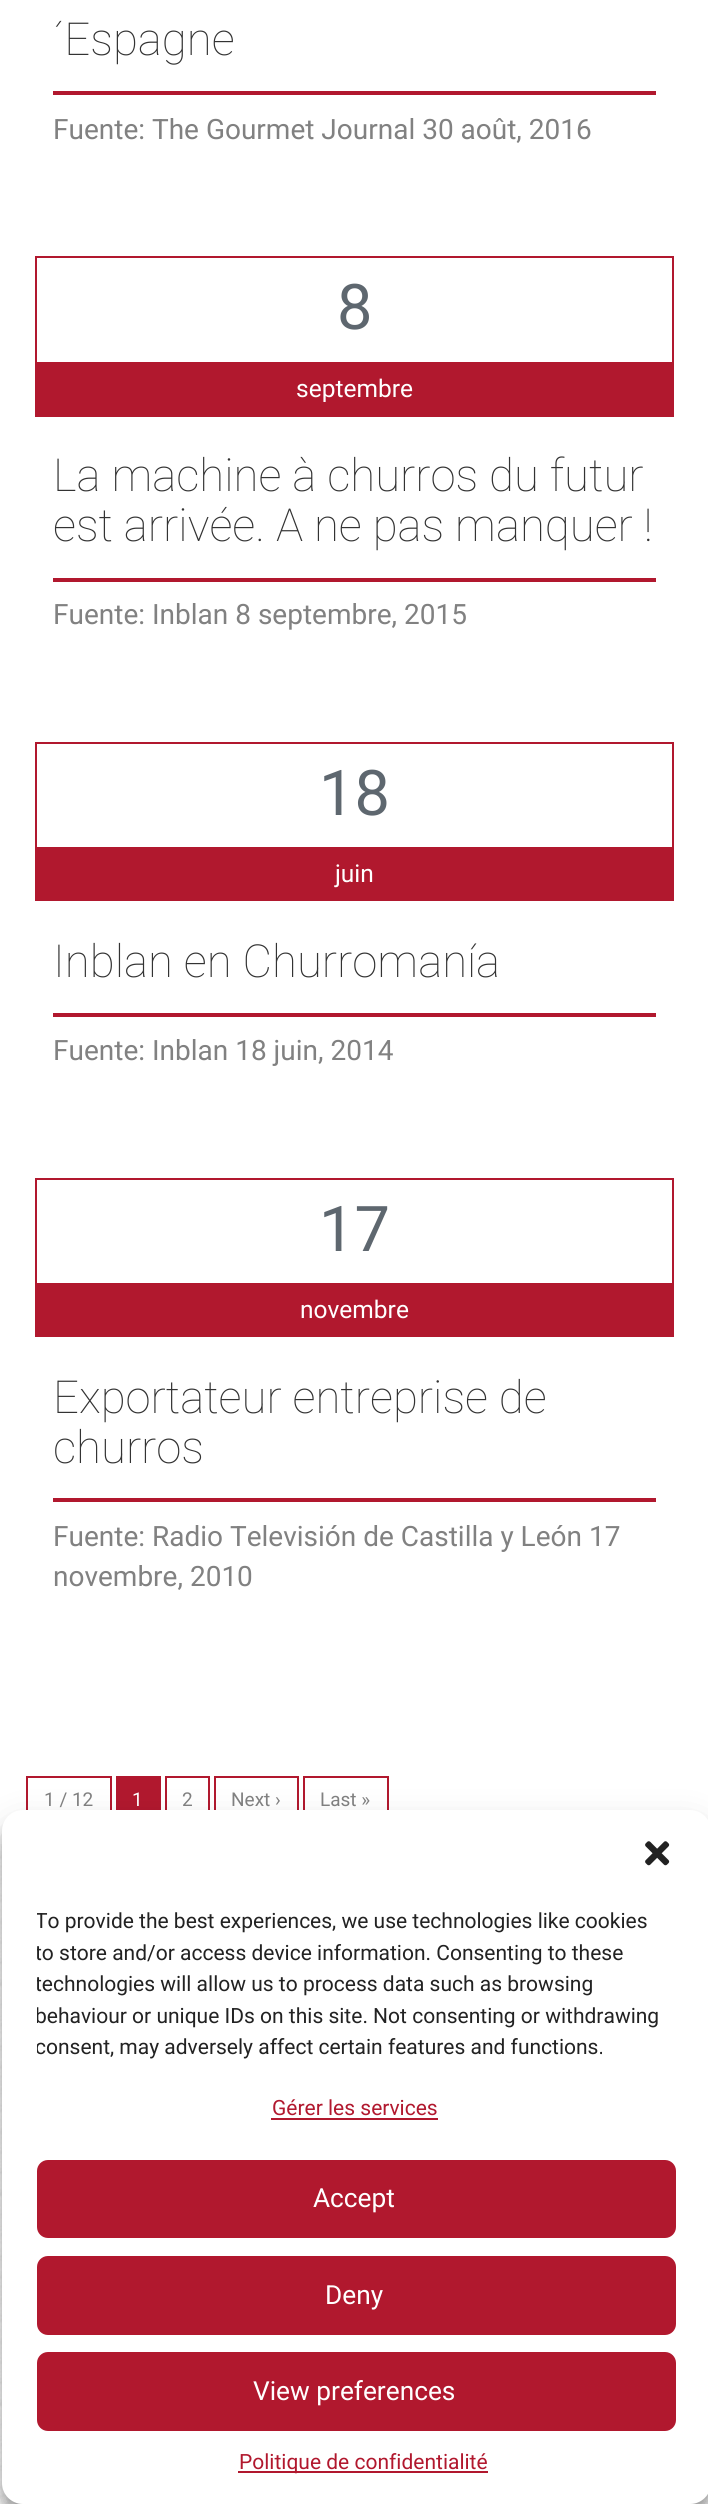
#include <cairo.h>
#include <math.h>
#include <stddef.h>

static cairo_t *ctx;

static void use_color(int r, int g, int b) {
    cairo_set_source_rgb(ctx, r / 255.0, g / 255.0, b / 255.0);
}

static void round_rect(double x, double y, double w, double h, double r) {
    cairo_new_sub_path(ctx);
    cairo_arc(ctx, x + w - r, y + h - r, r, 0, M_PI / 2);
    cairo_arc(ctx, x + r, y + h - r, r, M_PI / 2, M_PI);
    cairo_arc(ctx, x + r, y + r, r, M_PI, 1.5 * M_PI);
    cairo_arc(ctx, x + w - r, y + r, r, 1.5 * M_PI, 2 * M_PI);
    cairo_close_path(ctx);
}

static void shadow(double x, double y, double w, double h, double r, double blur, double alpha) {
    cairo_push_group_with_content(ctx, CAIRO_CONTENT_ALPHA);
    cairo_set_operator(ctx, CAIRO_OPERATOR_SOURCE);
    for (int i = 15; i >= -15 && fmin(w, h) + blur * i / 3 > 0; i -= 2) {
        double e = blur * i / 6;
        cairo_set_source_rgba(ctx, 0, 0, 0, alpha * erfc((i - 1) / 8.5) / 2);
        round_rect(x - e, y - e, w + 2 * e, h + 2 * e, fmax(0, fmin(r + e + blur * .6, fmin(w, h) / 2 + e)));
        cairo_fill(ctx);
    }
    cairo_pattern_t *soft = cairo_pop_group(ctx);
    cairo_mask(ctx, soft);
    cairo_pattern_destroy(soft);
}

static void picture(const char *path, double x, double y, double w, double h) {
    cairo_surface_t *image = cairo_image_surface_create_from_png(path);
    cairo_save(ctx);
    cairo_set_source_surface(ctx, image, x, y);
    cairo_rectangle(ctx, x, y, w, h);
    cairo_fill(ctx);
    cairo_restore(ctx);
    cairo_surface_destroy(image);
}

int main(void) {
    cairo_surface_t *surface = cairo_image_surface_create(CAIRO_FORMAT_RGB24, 708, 2504);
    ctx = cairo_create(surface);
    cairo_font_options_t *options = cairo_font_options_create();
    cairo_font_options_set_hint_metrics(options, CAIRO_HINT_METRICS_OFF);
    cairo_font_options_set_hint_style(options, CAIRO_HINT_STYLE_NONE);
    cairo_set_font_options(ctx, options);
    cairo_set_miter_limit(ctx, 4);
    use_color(255, 255, 255);
    cairo_paint(ctx);
    use_color(177, 24, 46);
    cairo_rectangle(ctx, 53, 91, 603, 4);
    cairo_fill(ctx);
    cairo_select_font_face(ctx, "Roboto Thin", CAIRO_FONT_SLANT_NORMAL, CAIRO_FONT_WEIGHT_NORMAL);
    cairo_set_font_size(ctx, 45.5);
    use_color(51, 51, 51);
    cairo_move_to(ctx, 53, 55);
    cairo_show_text(ctx, "´Espagne");
    cairo_select_font_face(ctx, "Roboto", CAIRO_FONT_SLANT_NORMAL, CAIRO_FONT_WEIGHT_NORMAL);
    cairo_set_font_size(ctx, 28);
    use_color(129, 129, 129);
    cairo_move_to(ctx, 53, 139);
    cairo_show_text(ctx, "Fuente: The Gourmet Journal 30 août, 2016");
    cairo_rectangle(ctx, 36, 257, 637, 159);
    use_color(177, 24, 46);
    cairo_stroke(ctx);
    cairo_set_font_size(ctx, 63);
    use_color(94, 103, 111);
    cairo_move_to(ctx, 337, 329);
    cairo_show_text(ctx, "8");
    use_color(177, 24, 46);
    cairo_rectangle(ctx, 37, 362, 635, 53);
    cairo_fill(ctx);
    cairo_set_font_size(ctx, 24.5);
    use_color(255, 255, 255);
    cairo_move_to(ctx, 296, 397);
    cairo_show_text(ctx, "septembre");
    use_color(177, 24, 46);
    cairo_rectangle(ctx, 53, 578, 603, 4);
    cairo_fill(ctx);
    cairo_select_font_face(ctx, "Roboto Thin", CAIRO_FONT_SLANT_NORMAL, CAIRO_FONT_WEIGHT_NORMAL);
    cairo_set_font_size(ctx, 45.5);
    use_color(51, 51, 51);
    cairo_move_to(ctx, 53, 491);
    cairo_show_text(ctx, "La machine à churros du futur");
    cairo_move_to(ctx, 53, 541);
    cairo_show_text(ctx, "est arrivée. A ne pas manquer !");
    cairo_select_font_face(ctx, "Roboto", CAIRO_FONT_SLANT_NORMAL, CAIRO_FONT_WEIGHT_NORMAL);
    cairo_set_font_size(ctx, 28);
    use_color(129, 129, 129);
    cairo_move_to(ctx, 53, 624);
    cairo_show_text(ctx, "Fuente: Inblan 8 septembre, 2015");
    cairo_rectangle(ctx, 36, 743, 637, 157);
    use_color(177, 24, 46);
    cairo_stroke(ctx);
    cairo_set_font_size(ctx, 63);
    use_color(94, 103, 111);
    cairo_move_to(ctx, 319, 815);
    cairo_show_text(ctx, "18");
    use_color(177, 24, 46);
    cairo_rectangle(ctx, 37, 847, 635, 52);
    cairo_fill(ctx);
    cairo_set_font_size(ctx, 24.5);
    use_color(255, 255, 255);
    cairo_move_to(ctx, 335, 882);
    cairo_show_text(ctx, "juin");
    use_color(177, 24, 46);
    cairo_rectangle(ctx, 53, 1013, 603, 4);
    cairo_fill(ctx);
    cairo_select_font_face(ctx, "Roboto Thin", CAIRO_FONT_SLANT_NORMAL, CAIRO_FONT_WEIGHT_NORMAL);
    cairo_set_font_size(ctx, 45.5);
    use_color(51, 51, 51);
    cairo_move_to(ctx, 53, 977);
    cairo_show_text(ctx, "Inblan en Churromanía");
    cairo_select_font_face(ctx, "Roboto", CAIRO_FONT_SLANT_NORMAL, CAIRO_FONT_WEIGHT_NORMAL);
    cairo_set_font_size(ctx, 28);
    use_color(129, 129, 129);
    cairo_move_to(ctx, 53, 1060);
    cairo_show_text(ctx, "Fuente: Inblan 18 juin, 2014");
    cairo_rectangle(ctx, 36, 1179, 637, 157);
    use_color(177, 24, 46);
    cairo_stroke(ctx);
    cairo_set_font_size(ctx, 63);
    use_color(94, 103, 111);
    cairo_move_to(ctx, 319, 1251);
    cairo_show_text(ctx, "17");
    use_color(177, 24, 46);
    cairo_rectangle(ctx, 37, 1283, 635, 52);
    cairo_fill(ctx);
    cairo_set_font_size(ctx, 24.5);
    use_color(255, 255, 255);
    cairo_move_to(ctx, 300, 1318);
    cairo_show_text(ctx, "novembre");
    use_color(177, 24, 46);
    cairo_rectangle(ctx, 53, 1498, 603, 4);
    cairo_fill(ctx);
    cairo_select_font_face(ctx, "Roboto Thin", CAIRO_FONT_SLANT_NORMAL, CAIRO_FONT_WEIGHT_NORMAL);
    cairo_set_font_size(ctx, 45.5);
    use_color(51, 51, 51);
    cairo_move_to(ctx, 53, 1413);
    cairo_show_text(ctx, "Exportateur entreprise de");
    cairo_move_to(ctx, 53, 1463);
    cairo_show_text(ctx, "churros");
    cairo_select_font_face(ctx, "Roboto", CAIRO_FONT_SLANT_NORMAL, CAIRO_FONT_WEIGHT_NORMAL);
    cairo_set_font_size(ctx, 28);
    use_color(129, 129, 129);
    cairo_move_to(ctx, 53, 1546);
    cairo_show_text(ctx, "Fuente: Radio Televisión de Castilla y León 17");
    cairo_move_to(ctx, 53, 1586);
    cairo_show_text(ctx, "novembre, 2010");
    cairo_rectangle(ctx, 27, 1777, 84, 44);
    use_color(177, 24, 46);
    cairo_stroke(ctx);
    cairo_set_font_size(ctx, 19);
    use_color(129, 129, 129);
    cairo_move_to(ctx, 44, 1806);
    cairo_show_text(ctx, "1 / 12");
    use_color(177, 24, 46);
    cairo_rectangle(ctx, 116, 1776, 45, 34);
    cairo_fill(ctx);
    use_color(255, 255, 255);
    cairo_move_to(ctx, 132, 1806);
    cairo_show_text(ctx, "1");
    cairo_rectangle(ctx, 166, 1777, 43, 44);
    use_color(177, 24, 46);
    cairo_stroke(ctx);
    use_color(129, 129, 129);
    cairo_move_to(ctx, 182, 1806);
    cairo_show_text(ctx, "2");
    cairo_rectangle(ctx, 215, 1777, 83, 44);
    use_color(177, 24, 46);
    cairo_stroke(ctx);
    use_color(129, 129, 129);
    cairo_move_to(ctx, 231, 1806);
    cairo_show_text(ctx, "Next ›");
    cairo_rectangle(ctx, 304, 1777, 84, 44);
    use_color(177, 24, 46);
    cairo_stroke(ctx);
    use_color(129, 129, 129);
    cairo_move_to(ctx, 320, 1806);
    cairo_show_text(ctx, "Last »");
    picture("img1.png", 0, 1844, 708, 660);
    use_color(0, 0, 0);
    shadow(2, 1820, 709, 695, 21, 5, 0.23);
    shadow(2, 1827, 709, 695, 21, 17.5, 0.19);
    use_color(255, 255, 255);
    round_rect(2, 1810, 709, 694, 21);
    cairo_fill(ctx);
    picture("img2.png", 645, 1841, 25, 25);
    cairo_save(ctx);
    cairo_rectangle(ctx, 37, 1906, 639, 166);
    cairo_clip(ctx);
    cairo_set_font_size(ctx, 21);
    use_color(34, 34, 34);
    cairo_move_to(ctx, 35, 1928);
    cairo_show_text(ctx, "To provide the best experiences, we use technologies like cookies");
    cairo_move_to(ctx, 35, 1960);
    cairo_show_text(ctx, "to store and/or access device information. Consenting to these");
    cairo_move_to(ctx, 35, 1991);
    cairo_show_text(ctx, "technologies will allow us to process data such as browsing");
    cairo_move_to(ctx, 35, 2023);
    cairo_show_text(ctx, "behaviour or unique IDs on this site. Not consenting or withdrawing");
    cairo_move_to(ctx, 35, 2054);
    cairo_show_text(ctx, "consent, may adversely affect certain features and functions.");
    cairo_restore(ctx);
    cairo_set_font_size(ctx, 21);
    use_color(177, 24, 46);
    cairo_move_to(ctx, 272, 2115);
    cairo_show_text(ctx, "Gérer les services");
    cairo_rectangle(ctx, 271, 2118, 167, 2);
    cairo_fill(ctx);
    round_rect(38, 2161, 637, 76, 10);
    cairo_fill_preserve(ctx);
    cairo_stroke(ctx);
    cairo_set_font_size(ctx, 26.25);
    use_color(255, 255, 255);
    cairo_move_to(ctx, 313, 2207);
    cairo_show_text(ctx, "Accept");
    use_color(177, 24, 46);
    round_rect(38, 2257, 637, 77, 10);
    cairo_fill_preserve(ctx);
    cairo_stroke(ctx);
    use_color(255, 255, 255);
    cairo_move_to(ctx, 325, 2304);
    cairo_show_text(ctx, "Deny");
    use_color(177, 24, 46);
    round_rect(38, 2353, 637, 77, 10);
    cairo_fill_preserve(ctx);
    cairo_stroke(ctx);
    use_color(255, 255, 255);
    cairo_move_to(ctx, 253, 2400);
    cairo_show_text(ctx, "View preferences");
    use_color(177, 24, 46);
    cairo_rectangle(ctx, 238, 2471, 250, 2);
    cairo_fill(ctx);
    cairo_set_font_size(ctx, 21);
    cairo_move_to(ctx, 239, 2469);
    cairo_show_text(ctx, "Politique de confidentialité");
    cairo_surface_write_to_png(surface, "result.png");
    cairo_font_options_destroy(options);
    cairo_destroy(ctx);
    cairo_surface_destroy(surface);
    return 0;
}
